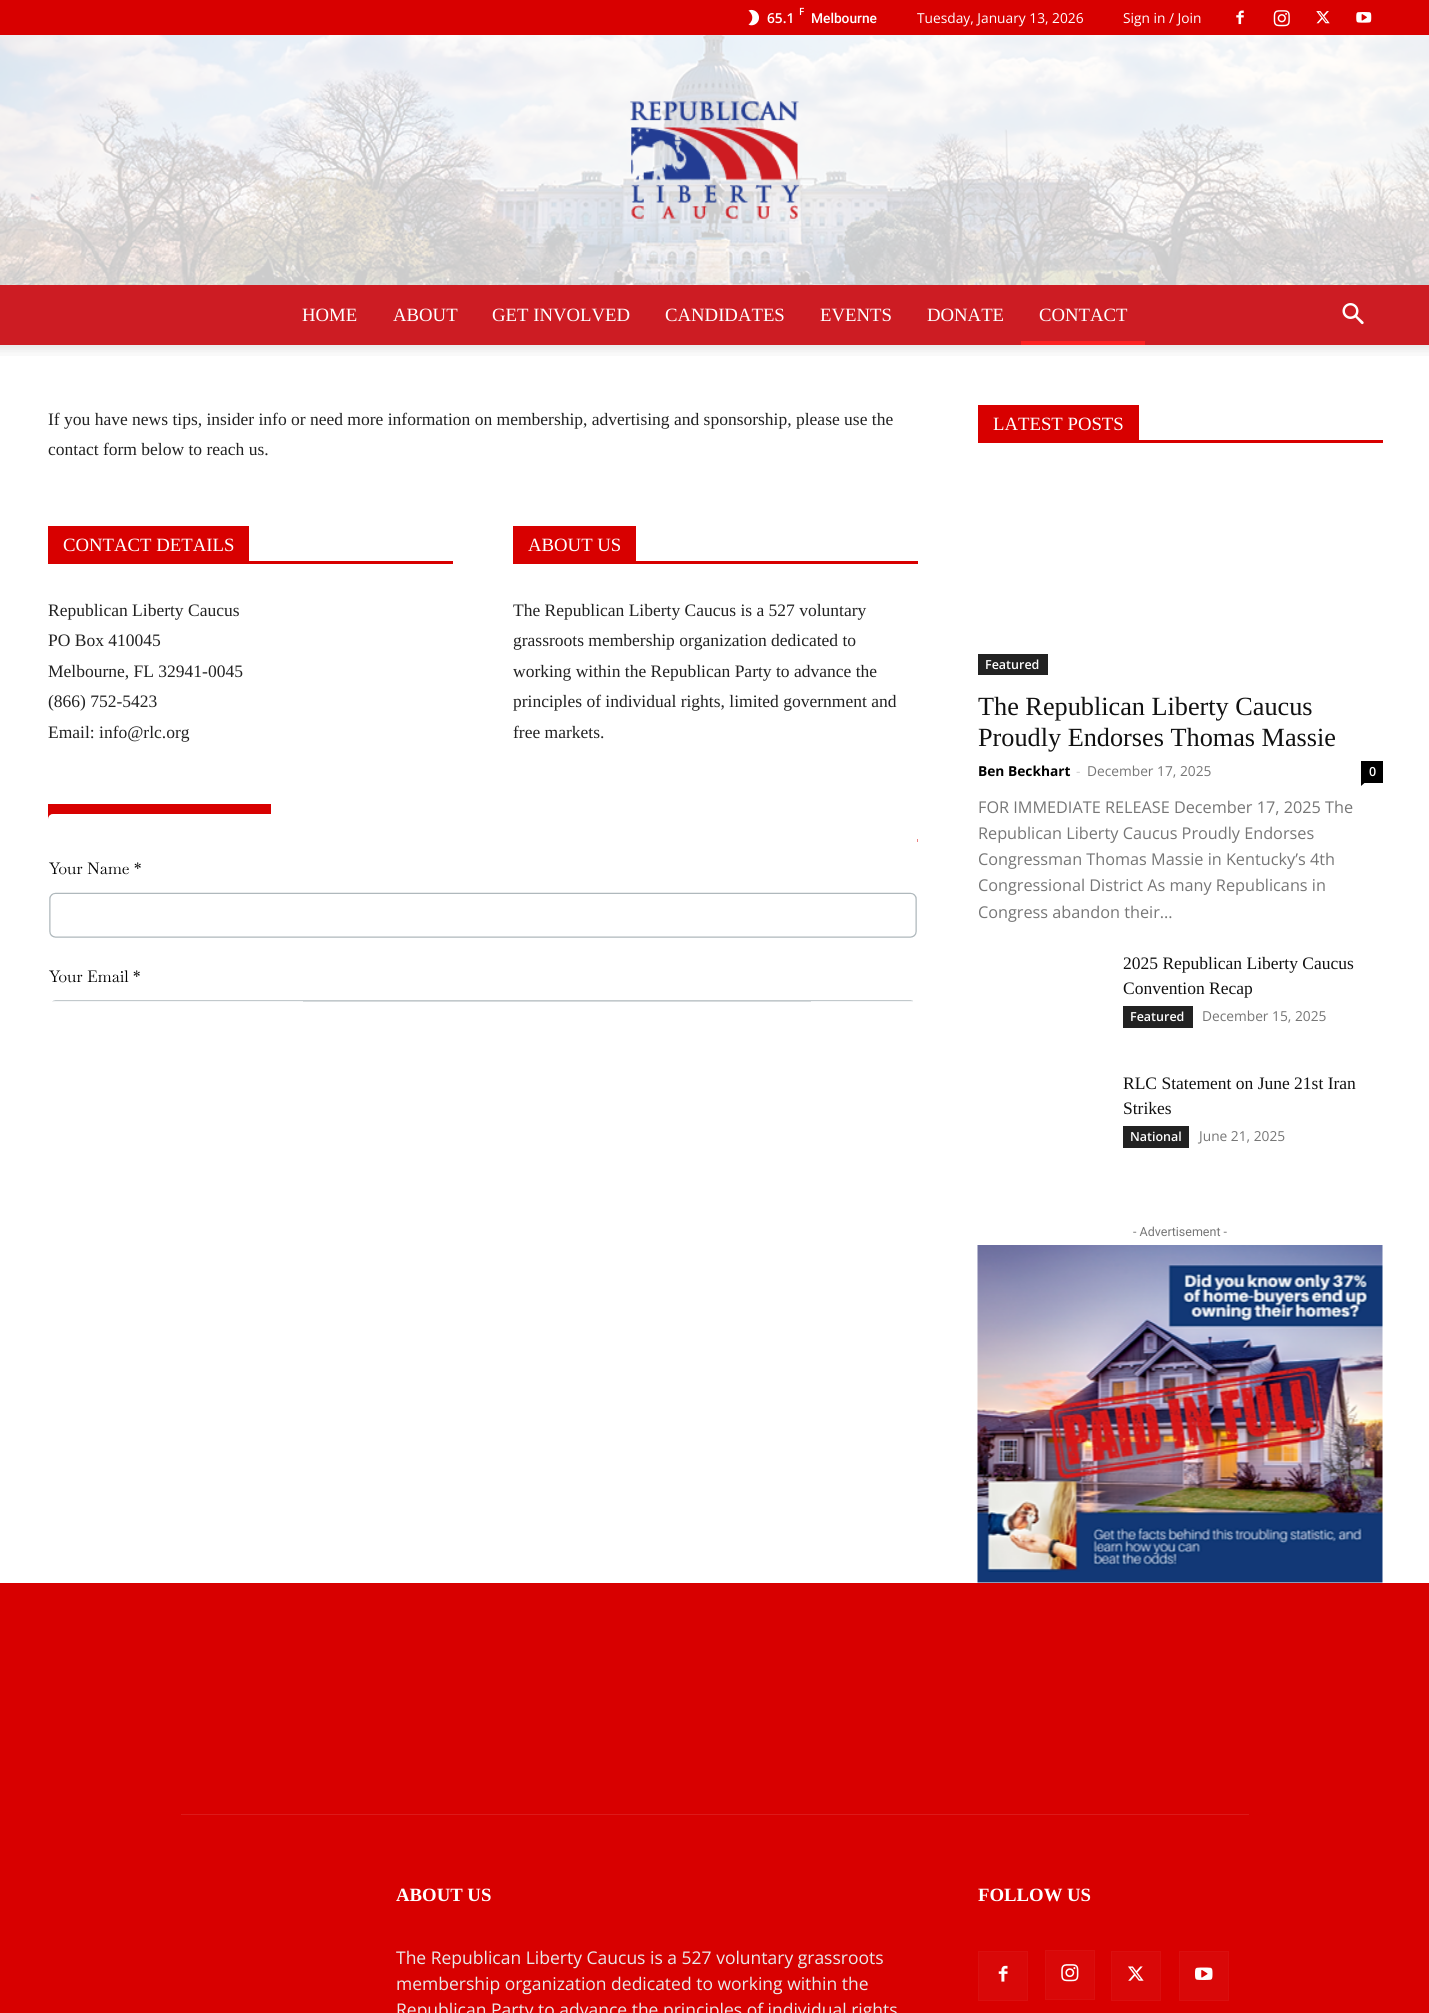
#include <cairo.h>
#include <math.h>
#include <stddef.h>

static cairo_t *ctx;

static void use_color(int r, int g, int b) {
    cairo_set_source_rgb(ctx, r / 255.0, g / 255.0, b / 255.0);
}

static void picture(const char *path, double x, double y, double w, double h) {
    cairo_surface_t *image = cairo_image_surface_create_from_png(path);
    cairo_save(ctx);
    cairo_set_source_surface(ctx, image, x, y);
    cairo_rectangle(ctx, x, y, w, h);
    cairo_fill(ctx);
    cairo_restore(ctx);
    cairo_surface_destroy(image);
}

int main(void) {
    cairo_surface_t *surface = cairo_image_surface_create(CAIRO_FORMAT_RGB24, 1429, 2013);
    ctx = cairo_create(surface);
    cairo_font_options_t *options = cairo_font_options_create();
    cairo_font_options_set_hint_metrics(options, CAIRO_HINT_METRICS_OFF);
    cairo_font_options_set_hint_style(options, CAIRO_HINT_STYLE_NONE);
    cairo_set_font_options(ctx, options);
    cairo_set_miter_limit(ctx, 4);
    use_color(255, 255, 255);
    cairo_paint(ctx);
    use_color(216, 0, 0);
    cairo_rectangle(ctx, 0, 0, 1429, 35);
    cairo_fill(ctx);
    picture("img1.png", 748, 9, 11, 17);
    cairo_select_font_face(ctx, "Open Sans SemiBold", CAIRO_FONT_SLANT_NORMAL, CAIRO_FONT_WEIGHT_NORMAL);
    cairo_set_font_size(ctx, 10);
    use_color(255, 255, 255);
    cairo_move_to(ctx, 799, 15);
    cairo_show_text(ctx, "F");
    cairo_set_font_size(ctx, 13.75);
    cairo_move_to(ctx, 767, 23);
    cairo_show_text(ctx, "65.1");
    cairo_select_font_face(ctx, "Roboto Medium", CAIRO_FONT_SLANT_NORMAL, CAIRO_FONT_WEIGHT_NORMAL);
    cairo_move_to(ctx, 811, 23);
    cairo_show_text(ctx, "Melbourne");
    cairo_select_font_face(ctx, "Open Sans", CAIRO_FONT_SLANT_NORMAL, CAIRO_FONT_WEIGHT_NORMAL);
    cairo_move_to(ctx, 917, 23);
    cairo_show_text(ctx, "Tuesday, January 13, 2026");
    cairo_move_to(ctx, 1123, 23);
    cairo_show_text(ctx, "Sign in / Join");
    picture("img2.png", 1236, 10, 8, 15);
    picture("img3.png", 1273, 10, 17, 17);
    picture("img4.png", 1316, 11, 14, 13);
    picture("img5.png", 1356, 12, 16, 11);
    picture("img6.png", 0, 35, 1429, 250);
    picture("img7.png", 630, 101, 170, 118);
    use_color(205, 28, 35);
    cairo_rectangle(ctx, 0, 285, 1429, 60);
    cairo_fill(ctx);
    cairo_select_font_face(ctx, "Liberation Serif", CAIRO_FONT_SLANT_NORMAL, CAIRO_FONT_WEIGHT_NORMAL);
    cairo_set_font_size(ctx, 18.75);
    use_color(255, 255, 255);
    cairo_move_to(ctx, 302, 321);
    cairo_show_text(ctx, "HOME");
    cairo_move_to(ctx, 393, 321);
    cairo_show_text(ctx, "ABOUT");
    cairo_move_to(ctx, 492, 321);
    cairo_show_text(ctx, "GET INVOLVED");
    cairo_move_to(ctx, 665, 321);
    cairo_show_text(ctx, "CANDIDATES");
    cairo_move_to(ctx, 820, 321);
    cairo_show_text(ctx, "EVENTS");
    cairo_move_to(ctx, 927, 321);
    cairo_show_text(ctx, "DONATE");
    cairo_move_to(ctx, 1039, 321);
    cairo_show_text(ctx, "CONTACT");
    use_color(252, 34, 34);
    cairo_rectangle(ctx, 1021, 341, 124, 4);
    cairo_fill(ctx);
    picture("img8.png", 1342, 303, 22, 22);
    picture("img9.png", 0, 345, 1429, 11);
    cairo_set_font_size(ctx, 17.5);
    use_color(34, 34, 34);
    cairo_move_to(ctx, 48, 425);
    cairo_show_text(ctx, "If you have news tips, insider info or need more information on membership, advertising and sponsorship, please use the");
    cairo_move_to(ctx, 48, 455);
    cairo_show_text(ctx, "contact form below to reach us.");
    use_color(216, 0, 0);
    cairo_rectangle(ctx, 48, 561, 405, 3);
    cairo_fill(ctx);
    cairo_rectangle(ctx, 48, 526, 201, 35);
    cairo_fill(ctx);
    cairo_set_font_size(ctx, 18.75);
    use_color(255, 255, 255);
    cairo_move_to(ctx, 63, 551);
    cairo_show_text(ctx, "CONTACT DETAILS");
    cairo_set_font_size(ctx, 17.5);
    use_color(34, 34, 34);
    cairo_move_to(ctx, 48, 616);
    cairo_show_text(ctx, "Republican Liberty Caucus");
    cairo_move_to(ctx, 48, 646);
    cairo_show_text(ctx, "PO Box 410045");
    cairo_move_to(ctx, 48, 677);
    cairo_show_text(ctx, "Melbourne, FL 32941-0045");
    cairo_move_to(ctx, 48, 707);
    cairo_show_text(ctx, "(866) 752-5423");
    cairo_move_to(ctx, 48, 738);
    cairo_show_text(ctx, "Email: info@rlc.org");
    use_color(216, 0, 0);
    cairo_rectangle(ctx, 513, 561, 405, 3);
    cairo_fill(ctx);
    cairo_rectangle(ctx, 513, 526, 123, 35);
    cairo_fill(ctx);
    cairo_set_font_size(ctx, 18.75);
    use_color(255, 255, 255);
    cairo_move_to(ctx, 528, 551);
    cairo_show_text(ctx, "ABOUT US");
    cairo_set_font_size(ctx, 17.5);
    use_color(34, 34, 34);
    cairo_move_to(ctx, 513, 616);
    cairo_show_text(ctx, "The Republican Liberty Caucus is a 527 voluntary");
    cairo_move_to(ctx, 513, 646);
    cairo_show_text(ctx, "grassroots membership organization dedicated to");
    cairo_move_to(ctx, 513, 677);
    cairo_show_text(ctx, "working within the Republican Party to advance the");
    cairo_move_to(ctx, 513, 707);
    cairo_show_text(ctx, "principles of individual rights, limited government and");
    cairo_move_to(ctx, 513, 738);
    cairo_show_text(ctx, "free markets.");
    use_color(216, 0, 0);
    cairo_rectangle(ctx, 917, 839, 1, 3);
    cairo_fill(ctx);
    cairo_rectangle(ctx, 48, 804, 223, 15);
    cairo_fill(ctx);
    picture("img10.png", 48, 814, 870, 188);
    cairo_rectangle(ctx, 978, 440, 405, 3);
    cairo_fill(ctx);
    cairo_rectangle(ctx, 978, 405, 161, 35);
    cairo_fill(ctx);
    cairo_set_font_size(ctx, 18.75);
    use_color(255, 255, 255);
    cairo_move_to(ctx, 993, 430);
    cairo_show_text(ctx, "LATEST POSTS");
    use_color(34, 34, 34);
    cairo_rectangle(ctx, 978, 654, 70, 21);
    cairo_fill(ctx);
    cairo_select_font_face(ctx, "Open Sans SemiBold", CAIRO_FONT_SLANT_NORMAL, CAIRO_FONT_WEIGHT_NORMAL);
    cairo_set_font_size(ctx, 12.5);
    use_color(255, 255, 255);
    cairo_move_to(ctx, 985, 669);
    cairo_show_text(ctx, "Featured");
    cairo_select_font_face(ctx, "Liberation Serif", CAIRO_FONT_SLANT_NORMAL, CAIRO_FONT_WEIGHT_NORMAL);
    cairo_set_font_size(ctx, 26.25);
    use_color(17, 17, 17);
    cairo_move_to(ctx, 978, 715);
    cairo_show_text(ctx, "The Republican Liberty Caucus");
    cairo_move_to(ctx, 978, 746);
    cairo_show_text(ctx, "Proudly Endorses Thomas Massie");
    cairo_select_font_face(ctx, "Open Sans", CAIRO_FONT_SLANT_NORMAL, CAIRO_FONT_WEIGHT_BOLD);
    cairo_set_font_size(ctx, 13.75);
    use_color(0, 0, 0);
    cairo_move_to(ctx, 978, 776);
    cairo_show_text(ctx, "Ben Beckhart");
    cairo_select_font_face(ctx, "Open Sans", CAIRO_FONT_SLANT_NORMAL, CAIRO_FONT_WEIGHT_NORMAL);
    use_color(204, 204, 204);
    cairo_move_to(ctx, 1076, 776);
    cairo_show_text(ctx, "-");
    use_color(118, 118, 118);
    cairo_move_to(ctx, 1087, 776);
    cairo_show_text(ctx, "December 17, 2025");
    use_color(0, 0, 0);
    cairo_rectangle(ctx, 1361, 761, 22, 22);
    cairo_fill(ctx);
    cairo_select_font_face(ctx, "Open Sans SemiBold", CAIRO_FONT_SLANT_NORMAL, CAIRO_FONT_WEIGHT_NORMAL);
    cairo_set_font_size(ctx, 12.5);
    use_color(255, 255, 255);
    cairo_move_to(ctx, 1369, 776);
    cairo_show_text(ctx, "0");
    use_color(0, 0, 0);
    cairo_new_path(ctx);
    cairo_move_to(ctx, 1361, 782.5);
    cairo_line_to(ctx, 1365, 782.5);
    cairo_line_to(ctx, 1361, 786);
    cairo_close_path(ctx);
    cairo_fill(ctx);
    cairo_select_font_face(ctx, "Open Sans", CAIRO_FONT_SLANT_NORMAL, CAIRO_FONT_WEIGHT_NORMAL);
    cairo_set_font_size(ctx, 16.25);
    use_color(118, 118, 118);
    cairo_move_to(ctx, 978, 813);
    cairo_show_text(ctx, "FOR IMMEDIATE RELEASE December 17, 2025 The");
    cairo_move_to(ctx, 978, 839);
    cairo_show_text(ctx, "Republican Liberty Caucus Proudly Endorses");
    cairo_move_to(ctx, 978, 865);
    cairo_show_text(ctx, "Congressman Thomas Massie in Kentucky’s 4th");
    cairo_move_to(ctx, 978, 891);
    cairo_show_text(ctx, "Congressional District As many Republicans in");
    cairo_move_to(ctx, 978, 918);
    cairo_show_text(ctx, "Congress abandon their...");
    cairo_select_font_face(ctx, "Liberation Serif", CAIRO_FONT_SLANT_NORMAL, CAIRO_FONT_WEIGHT_NORMAL);
    cairo_set_font_size(ctx, 17.5);
    use_color(17, 17, 17);
    cairo_move_to(ctx, 1123, 969);
    cairo_show_text(ctx, "2025 Republican Liberty Caucus");
    cairo_move_to(ctx, 1123, 994);
    cairo_show_text(ctx, "Convention Recap");
    use_color(34, 34, 34);
    cairo_rectangle(ctx, 1123, 1006, 70, 22);
    cairo_fill(ctx);
    cairo_select_font_face(ctx, "Open Sans SemiBold", CAIRO_FONT_SLANT_NORMAL, CAIRO_FONT_WEIGHT_NORMAL);
    cairo_set_font_size(ctx, 12.5);
    use_color(255, 255, 255);
    cairo_move_to(ctx, 1130, 1021);
    cairo_show_text(ctx, "Featured");
    cairo_select_font_face(ctx, "Open Sans", CAIRO_FONT_SLANT_NORMAL, CAIRO_FONT_WEIGHT_NORMAL);
    cairo_set_font_size(ctx, 13.75);
    use_color(118, 118, 118);
    cairo_move_to(ctx, 1202, 1021);
    cairo_show_text(ctx, "December 15, 2025");
    cairo_select_font_face(ctx, "Liberation Serif", CAIRO_FONT_SLANT_NORMAL, CAIRO_FONT_WEIGHT_NORMAL);
    cairo_set_font_size(ctx, 17.5);
    use_color(17, 17, 17);
    cairo_move_to(ctx, 1123, 1089);
    cairo_show_text(ctx, "RLC Statement on June 21st Iran");
    cairo_move_to(ctx, 1123, 1114);
    cairo_show_text(ctx, "Strikes");
    use_color(34, 34, 34);
    cairo_rectangle(ctx, 1123, 1126, 66, 22);
    cairo_fill(ctx);
    cairo_select_font_face(ctx, "Open Sans SemiBold", CAIRO_FONT_SLANT_NORMAL, CAIRO_FONT_WEIGHT_NORMAL);
    cairo_set_font_size(ctx, 12.5);
    use_color(255, 255, 255);
    cairo_move_to(ctx, 1130, 1141);
    cairo_show_text(ctx, "National");
    cairo_select_font_face(ctx, "Open Sans", CAIRO_FONT_SLANT_NORMAL, CAIRO_FONT_WEIGHT_NORMAL);
    cairo_set_font_size(ctx, 13.75);
    use_color(118, 118, 118);
    cairo_move_to(ctx, 1199, 1141);
    cairo_show_text(ctx, "June 21, 2025");
    cairo_select_font_face(ctx, "Roboto", CAIRO_FONT_SLANT_NORMAL, CAIRO_FONT_WEIGHT_NORMAL);
    cairo_set_font_size(ctx, 12.5);
    cairo_move_to(ctx, 1133, 1236);
    cairo_show_text(ctx, "- Advertisement -");
    picture("img11.png", 977, 1245, 406, 338);
    use_color(216, 0, 0);
    cairo_rectangle(ctx, 0, 1583, 1429, 430);
    cairo_fill(ctx);
    use_color(220, 26, 26);
    cairo_rectangle(ctx, 181, 1814, 1068, 1);
    cairo_fill(ctx);
    cairo_select_font_face(ctx, "Liberation Serif", CAIRO_FONT_SLANT_NORMAL, CAIRO_FONT_WEIGHT_BOLD);
    cairo_set_font_size(ctx, 18.75);
    use_color(255, 255, 255);
    cairo_move_to(ctx, 396, 1901);
    cairo_show_text(ctx, "ABOUT US");
    cairo_select_font_face(ctx, "Open Sans", CAIRO_FONT_SLANT_NORMAL, CAIRO_FONT_WEIGHT_NORMAL);
    cairo_set_font_size(ctx, 17.5);
    use_color(234, 234, 234);
    cairo_move_to(ctx, 396, 1964);
    cairo_show_text(ctx, "The Republican Liberty Caucus is a 527 voluntary grassroots");
    cairo_move_to(ctx, 396, 1990);
    cairo_show_text(ctx, "membership organization dedicated to working within the");
    cairo_move_to(ctx, 396, 2016);
    cairo_show_text(ctx, "Republican Party to advance the principles of individual rights");
    cairo_select_font_face(ctx, "Liberation Serif", CAIRO_FONT_SLANT_NORMAL, CAIRO_FONT_WEIGHT_BOLD);
    cairo_set_font_size(ctx, 18.75);
    use_color(255, 255, 255);
    cairo_move_to(ctx, 978, 1901);
    cairo_show_text(ctx, "FOLLOW US");
    use_color(217, 8, 8);
    cairo_rectangle(ctx, 979, 1952, 48, 48);
    cairo_fill(ctx);
    picture("img12.png", 998, 1965, 10, 17);
    cairo_rectangle(ctx, 978.5, 1951.5, 49, 49);
    use_color(218, 15, 15);
    cairo_set_line_width(ctx, 1);
    cairo_stroke(ctx);
    use_color(217, 8, 8);
    cairo_rectangle(ctx, 1046, 1951, 48, 48);
    cairo_fill(ctx);
    picture("img13.png", 1061, 1964, 18, 18);
    cairo_rectangle(ctx, 1045.5, 1950.5, 49, 49);
    use_color(218, 15, 15);
    cairo_stroke(ctx);
    use_color(217, 8, 8);
    cairo_rectangle(ctx, 1112, 1952, 48, 48);
    cairo_fill(ctx);
    picture("img14.png", 1128, 1966, 16, 15);
    cairo_rectangle(ctx, 1111.5, 1951.5, 49, 49);
    use_color(218, 15, 15);
    cairo_stroke(ctx);
    use_color(217, 8, 8);
    cairo_rectangle(ctx, 1180, 1952, 48, 48);
    cairo_fill(ctx);
    picture("img15.png", 1195, 1967, 18, 13);
    cairo_rectangle(ctx, 1179.5, 1951.5, 49, 49);
    use_color(218, 15, 15);
    cairo_stroke(ctx);
    cairo_surface_write_to_png(surface, "result.png");
    cairo_font_options_destroy(options);
    cairo_destroy(ctx);
    cairo_surface_destroy(surface);
    return 0;
}
